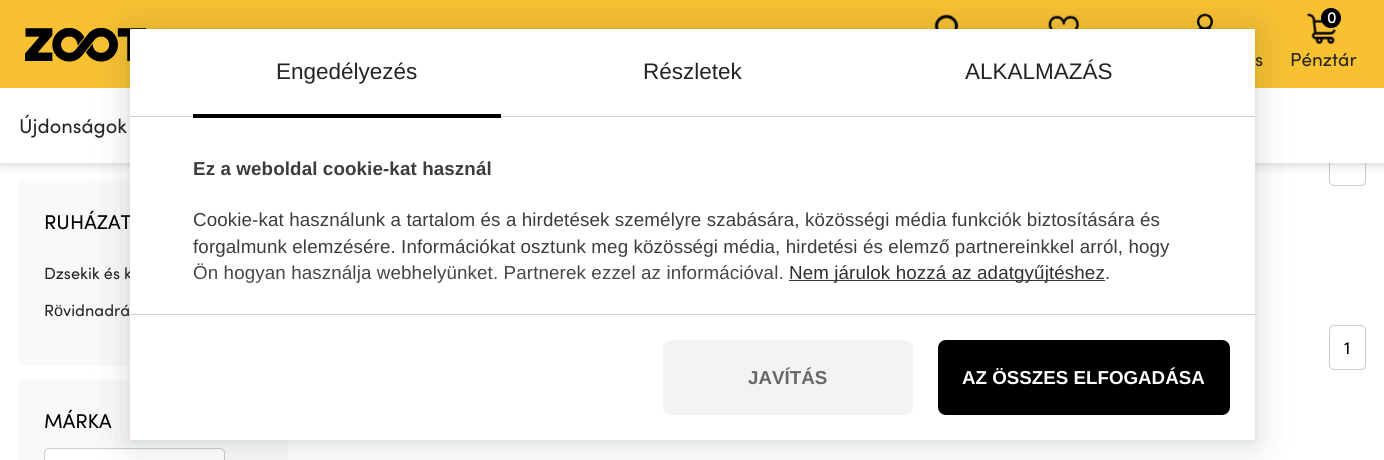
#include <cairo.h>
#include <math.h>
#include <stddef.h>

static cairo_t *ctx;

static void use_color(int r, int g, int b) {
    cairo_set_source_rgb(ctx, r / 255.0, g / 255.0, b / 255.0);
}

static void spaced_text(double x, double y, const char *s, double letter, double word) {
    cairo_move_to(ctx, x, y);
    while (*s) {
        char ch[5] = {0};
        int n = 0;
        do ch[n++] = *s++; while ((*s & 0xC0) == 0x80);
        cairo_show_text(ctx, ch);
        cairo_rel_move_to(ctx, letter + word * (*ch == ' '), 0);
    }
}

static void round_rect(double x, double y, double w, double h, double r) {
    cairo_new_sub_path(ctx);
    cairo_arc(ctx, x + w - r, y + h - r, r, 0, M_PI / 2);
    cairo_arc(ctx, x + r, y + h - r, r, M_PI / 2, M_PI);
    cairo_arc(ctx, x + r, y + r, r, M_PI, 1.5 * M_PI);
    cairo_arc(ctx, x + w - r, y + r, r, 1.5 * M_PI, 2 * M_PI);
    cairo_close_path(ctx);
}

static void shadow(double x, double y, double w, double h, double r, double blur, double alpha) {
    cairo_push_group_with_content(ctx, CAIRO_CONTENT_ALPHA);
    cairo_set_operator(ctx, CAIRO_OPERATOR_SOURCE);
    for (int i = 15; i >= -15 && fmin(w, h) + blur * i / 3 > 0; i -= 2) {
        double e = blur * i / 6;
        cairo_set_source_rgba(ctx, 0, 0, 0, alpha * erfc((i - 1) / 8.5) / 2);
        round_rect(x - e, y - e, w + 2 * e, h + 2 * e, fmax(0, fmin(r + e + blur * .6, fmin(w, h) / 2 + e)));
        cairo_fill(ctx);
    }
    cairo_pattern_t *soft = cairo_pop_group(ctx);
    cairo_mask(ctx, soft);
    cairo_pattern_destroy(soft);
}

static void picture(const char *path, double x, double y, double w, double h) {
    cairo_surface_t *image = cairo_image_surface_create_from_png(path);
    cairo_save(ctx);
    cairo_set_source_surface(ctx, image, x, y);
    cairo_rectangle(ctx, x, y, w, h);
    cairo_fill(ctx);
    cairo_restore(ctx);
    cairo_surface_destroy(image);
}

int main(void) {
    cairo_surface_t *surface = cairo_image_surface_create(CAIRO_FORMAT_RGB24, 1384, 460);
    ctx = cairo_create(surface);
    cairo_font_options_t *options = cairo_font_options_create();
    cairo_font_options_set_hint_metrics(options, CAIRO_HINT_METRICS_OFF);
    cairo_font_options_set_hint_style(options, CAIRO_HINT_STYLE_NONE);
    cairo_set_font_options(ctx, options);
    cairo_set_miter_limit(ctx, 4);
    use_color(255, 255, 255);
    cairo_paint(ctx);
    use_color(249, 249, 249);
    round_rect(19, 181, 269, 185, 5);
    cairo_fill(ctx);
    round_rect(1329.5, 141.5, 36, 44, 4.5);
    use_color(204, 204, 204);
    cairo_set_line_width(ctx, 1);
    cairo_stroke(ctx);
    use_color(0, 0, 0);
    shadow(0, 1, 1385, 163, 0, 5.5, 0.2);
    use_color(248, 193, 50);
    cairo_rectangle(ctx, 0, 0, 1384, 88);
    cairo_fill(ctx);
    picture("img1.png", 25, 28, 122, 34);
    picture("img2.png", 934, 14, 25, 15);
    picture("img3.png", 1048, 15, 31, 14);
    picture("img4.png", 1307, 13, 31, 31);
    use_color(0, 0, 0);
    cairo_arc(ctx, 1331, 18, 9.5, 0, 2 * M_PI);
    cairo_fill_preserve(ctx);
    cairo_stroke(ctx);
    cairo_select_font_face(ctx, "Sofia Medium", CAIRO_FONT_SLANT_NORMAL, CAIRO_FONT_WEIGHT_NORMAL);
    cairo_set_font_size(ctx, 16.25);
    use_color(255, 255, 255);
    cairo_move_to(ctx, 1327, 23);
    cairo_show_text(ctx, "0");
    cairo_select_font_face(ctx, "Sofia", CAIRO_FONT_SLANT_NORMAL, CAIRO_FONT_WEIGHT_NORMAL);
    cairo_set_font_size(ctx, 18.75);
    use_color(36, 36, 36);
    cairo_move_to(ctx, 1290, 66);
    cairo_show_text(ctx, "Pénztár");
    picture("img5.png", 1197, 13, 16, 16);
    cairo_move_to(ctx, 1255, 66);
    cairo_show_text(ctx, "s");
    use_color(255, 255, 255);
    cairo_rectangle(ctx, 0, 88, 1384, 75);
    cairo_fill(ctx);
    cairo_set_font_size(ctx, 20);
    use_color(36, 36, 36);
    cairo_move_to(ctx, 19, 133);
    cairo_show_text(ctx, "Újdonságok");
    use_color(249, 249, 249);
    round_rect(19, 380, 269, 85, 5);
    cairo_fill(ctx);
    round_rect(44.5, 448.5, 180, 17, 4.5);
    use_color(204, 204, 204);
    cairo_stroke(ctx);
    use_color(255, 255, 255);
    round_rect(45, 449, 179, 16, 5);
    cairo_fill(ctx);
    use_color(5, 27, 44);
    shadow(130, 31, 1125, 412, 0, 20, 0.16);
    shadow(130, 30, 1125, 411, 0, 4, 0.06);
    use_color(0, 0, 0);
    cairo_move_to(ctx, 44, 229);
    cairo_show_text(ctx, "RUHÁZAT");
    cairo_set_font_size(ctx, 16.25);
    use_color(36, 36, 36);
    cairo_move_to(ctx, 44, 279);
    cairo_show_text(ctx, "Dzsekik és k");
    use_color(255, 255, 255);
    cairo_rectangle(ctx, 130, 29, 1125, 411);
    cairo_fill(ctx);
    use_color(208, 208, 208);
    cairo_rectangle(ctx, 130, 116, 1125, 1);
    cairo_fill(ctx);
    cairo_select_font_face(ctx, "Liberation Sans", CAIRO_FONT_SLANT_NORMAL, CAIRO_FONT_WEIGHT_NORMAL);
    cairo_set_font_size(ctx, 22.5);
    use_color(36, 36, 36);
    cairo_move_to(ctx, 276, 79);
    cairo_show_text(ctx, "Engedélyezés");
    use_color(0, 0, 0);
    cairo_rectangle(ctx, 193, 114, 308, 4);
    cairo_fill(ctx);
    use_color(36, 36, 36);
    cairo_move_to(ctx, 643, 79);
    cairo_show_text(ctx, "Részletek");
    cairo_move_to(ctx, 965, 79);
    cairo_show_text(ctx, "ALKALMAZÁS");
    cairo_select_font_face(ctx, "Liberation Sans", CAIRO_FONT_SLANT_NORMAL, CAIRO_FONT_WEIGHT_BOLD);
    cairo_set_font_size(ctx, 18.75);
    use_color(60, 60, 60);
    spaced_text(193, 175, "Ez a weboldal cookie-kat használ", 0.12, 0);
    cairo_select_font_face(ctx, "Liberation Sans", CAIRO_FONT_SLANT_NORMAL, CAIRO_FONT_WEIGHT_NORMAL);
    spaced_text(193, 226, "Cookie-kat használunk a tartalom és a hirdetések személyre szabására, közösségi média funkciók biztosítására és", 0.12, 0);
    spaced_text(193, 253, "forgalmunk elemzésére. Információkat osztunk meg közösségi média, hirdetési és elemző partnereinkkel arról, hogy", 0.12, 0);
    spaced_text(193, 279, "Ön hogyan használja webhelyünket. Partnerek ezzel az információval.", 0.12, 0);
    use_color(36, 36, 36);
    cairo_rectangle(ctx, 789, 280, 316, 1);
    cairo_fill(ctx);
    spaced_text(789, 279, "Nem járulok hozzá az adatgyűjtéshez", 0.12, 0);
    use_color(60, 60, 60);
    spaced_text(1105, 279, ".", 0.12, 0);
    round_rect(1329.5, 325.5, 36, 44, 4.5);
    use_color(204, 204, 204);
    cairo_stroke(ctx);
    cairo_save(ctx);
    cairo_rectangle(ctx, 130, 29, 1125, 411);
    cairo_clip(ctx);
    cairo_rectangle(ctx, 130, 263, 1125, 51);
    cairo_clip(ctx);
    use_color(255, 255, 255);
    shadow(130, 314, 1125, 126, 0, 25, 1);
    cairo_restore(ctx);
    use_color(208, 208, 208);
    cairo_rectangle(ctx, 130, 314, 1125, 1);
    cairo_fill(ctx);
    use_color(243, 243, 242);
    round_rect(663, 340, 250, 75, 8);
    cairo_fill(ctx);
    cairo_select_font_face(ctx, "Liberation Sans", CAIRO_FONT_SLANT_NORMAL, CAIRO_FONT_WEIGHT_BOLD);
    use_color(103, 103, 103);
    cairo_move_to(ctx, 748, 384);
    cairo_show_text(ctx, "JAVÍTÁS");
    use_color(0, 0, 0);
    round_rect(938, 340, 292, 75, 8);
    cairo_fill(ctx);
    use_color(255, 255, 255);
    cairo_move_to(ctx, 962, 384);
    cairo_show_text(ctx, "AZ ÖSSZES ELFOGADÁSA");
    cairo_select_font_face(ctx, "Sofia", CAIRO_FONT_SLANT_NORMAL, CAIRO_FONT_WEIGHT_NORMAL);
    cairo_set_font_size(ctx, 16.25);
    use_color(36, 36, 36);
    cairo_move_to(ctx, 44, 316);
    cairo_show_text(ctx, "R");
    cairo_select_font_face(ctx, "Liberation Sans", CAIRO_FONT_SLANT_NORMAL, CAIRO_FONT_WEIGHT_NORMAL);
    cairo_move_to(ctx, 54, 316);
    cairo_show_text(ctx, "ö");
    cairo_select_font_face(ctx, "Sofia", CAIRO_FONT_SLANT_NORMAL, CAIRO_FONT_WEIGHT_NORMAL);
    cairo_move_to(ctx, 63, 316);
    cairo_show_text(ctx, "vidnadrá");
    cairo_set_font_size(ctx, 20);
    use_color(0, 0, 0);
    cairo_move_to(ctx, 44, 428);
    cairo_show_text(ctx, "MÁRKA");
    cairo_set_font_size(ctx, 18);
    cairo_move_to(ctx, 1344, 354);
    cairo_show_text(ctx, "1");
    cairo_surface_write_to_png(surface, "result.png");
    cairo_font_options_destroy(options);
    cairo_destroy(ctx);
    cairo_surface_destroy(surface);
    return 0;
}
